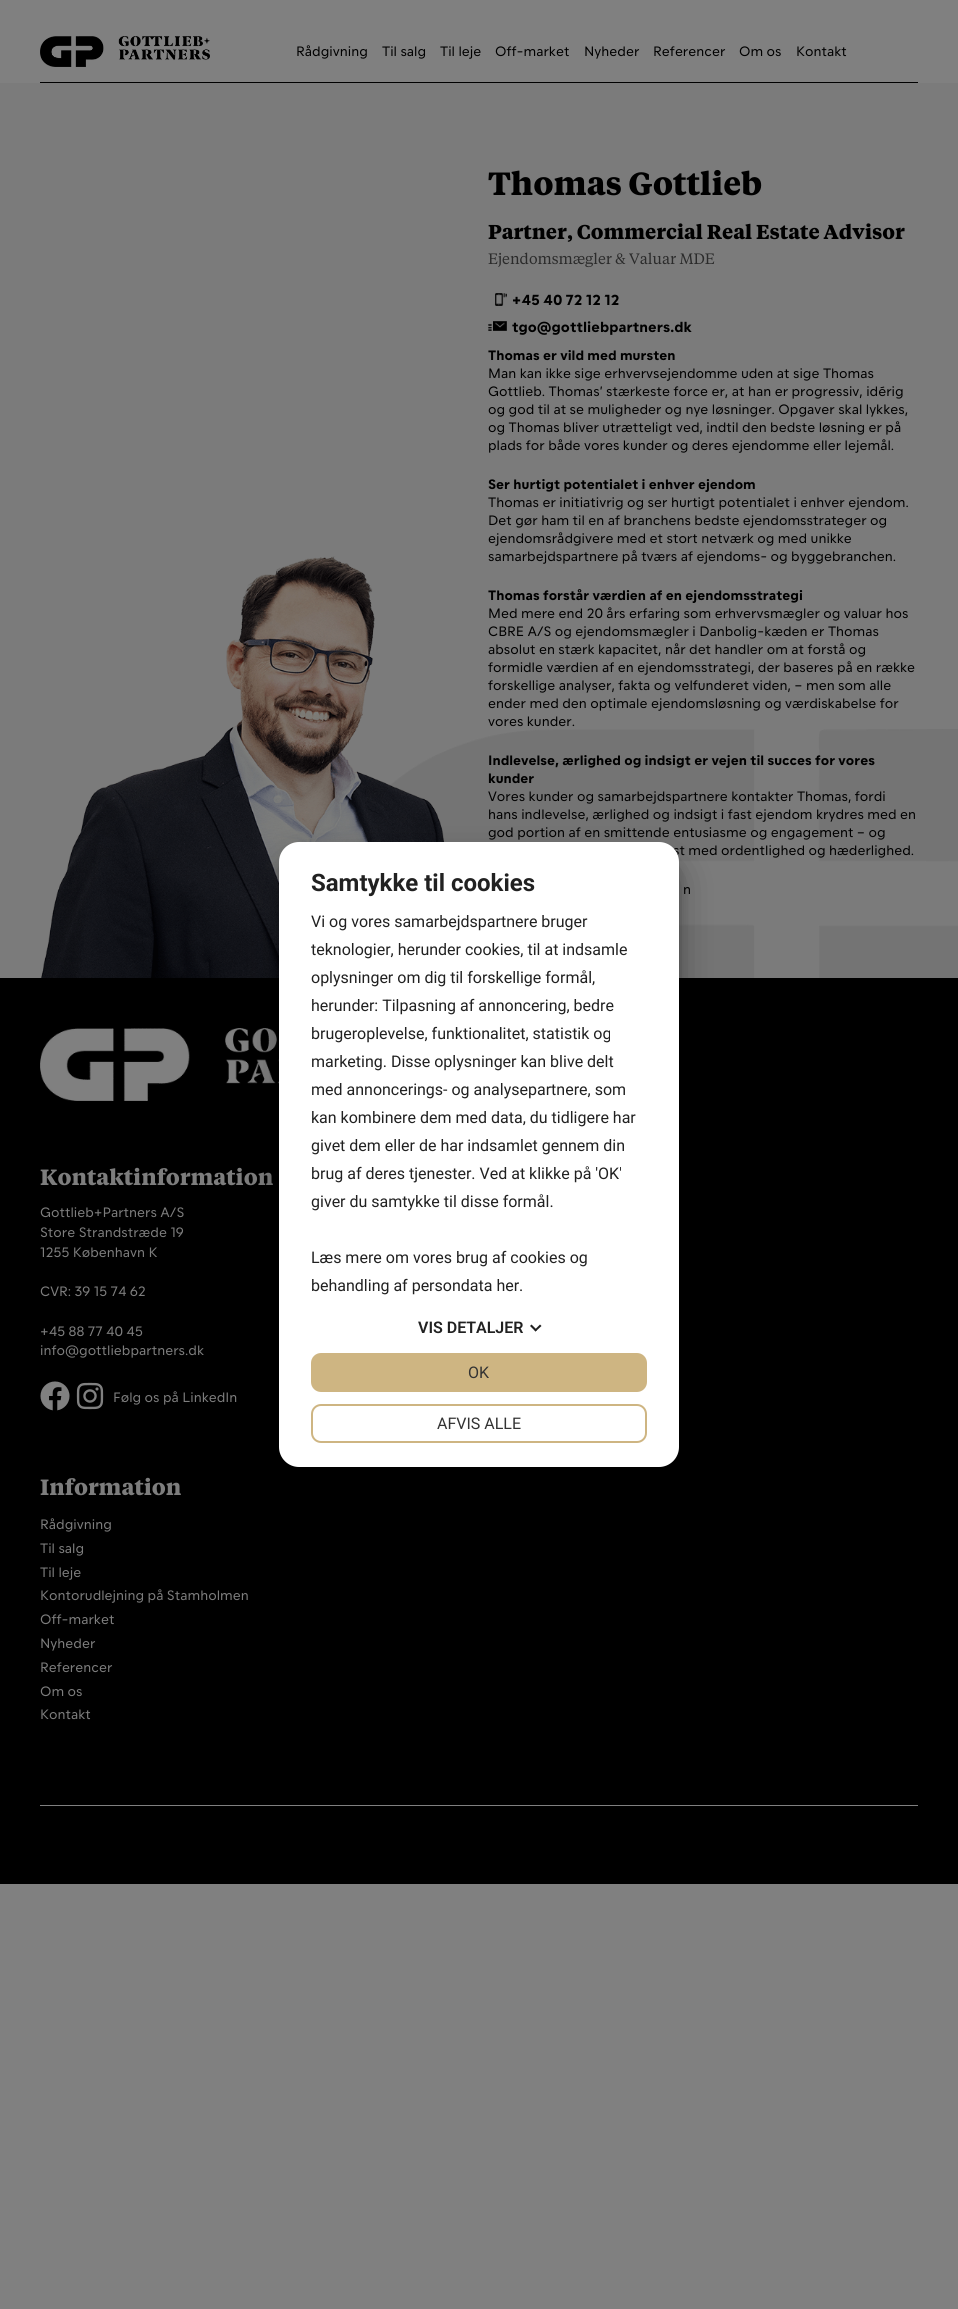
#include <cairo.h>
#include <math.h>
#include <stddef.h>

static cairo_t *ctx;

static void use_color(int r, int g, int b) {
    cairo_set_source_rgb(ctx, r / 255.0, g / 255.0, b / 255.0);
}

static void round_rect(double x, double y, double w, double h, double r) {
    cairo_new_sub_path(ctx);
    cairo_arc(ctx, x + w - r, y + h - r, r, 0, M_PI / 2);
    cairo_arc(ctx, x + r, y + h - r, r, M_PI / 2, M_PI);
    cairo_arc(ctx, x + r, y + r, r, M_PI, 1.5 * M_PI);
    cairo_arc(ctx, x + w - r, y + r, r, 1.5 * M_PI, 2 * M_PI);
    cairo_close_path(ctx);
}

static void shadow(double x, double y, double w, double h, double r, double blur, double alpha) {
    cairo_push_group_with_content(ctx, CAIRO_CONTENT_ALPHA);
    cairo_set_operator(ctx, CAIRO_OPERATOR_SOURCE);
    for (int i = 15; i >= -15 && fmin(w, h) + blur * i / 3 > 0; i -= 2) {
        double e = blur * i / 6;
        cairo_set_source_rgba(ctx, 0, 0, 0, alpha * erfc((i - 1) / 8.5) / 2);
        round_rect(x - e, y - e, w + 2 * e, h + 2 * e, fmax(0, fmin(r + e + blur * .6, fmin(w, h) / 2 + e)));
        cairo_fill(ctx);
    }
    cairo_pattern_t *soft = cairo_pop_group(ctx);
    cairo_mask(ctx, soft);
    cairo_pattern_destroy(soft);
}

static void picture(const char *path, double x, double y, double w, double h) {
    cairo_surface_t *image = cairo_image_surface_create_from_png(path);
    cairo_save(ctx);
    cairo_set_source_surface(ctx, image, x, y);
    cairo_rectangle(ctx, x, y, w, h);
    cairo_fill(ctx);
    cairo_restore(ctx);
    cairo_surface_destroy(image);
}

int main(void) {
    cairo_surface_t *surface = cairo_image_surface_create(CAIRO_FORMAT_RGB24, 958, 2309);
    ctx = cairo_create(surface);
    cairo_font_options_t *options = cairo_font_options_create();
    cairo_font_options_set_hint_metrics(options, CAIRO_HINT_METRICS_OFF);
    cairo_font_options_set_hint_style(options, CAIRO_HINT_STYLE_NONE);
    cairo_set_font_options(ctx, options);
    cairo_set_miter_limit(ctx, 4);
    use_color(128, 128, 128);
    cairo_paint(ctx);
    use_color(0, 0, 0);
    cairo_rectangle(ctx, 40, 82, 878, 1);
    cairo_fill(ctx);
    picture("img1.png", 40, 36, 170, 31);
    cairo_select_font_face(ctx, "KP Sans", CAIRO_FONT_SLANT_NORMAL, CAIRO_FONT_WEIGHT_NORMAL);
    cairo_set_font_size(ctx, 14);
    cairo_move_to(ctx, 296, 56);
    cairo_show_text(ctx, "Rådgivning");
    cairo_move_to(ctx, 382, 56);
    cairo_show_text(ctx, "Til salg");
    cairo_move_to(ctx, 440, 56);
    cairo_show_text(ctx, "Til leje");
    cairo_move_to(ctx, 495, 56);
    cairo_show_text(ctx, "Off-market");
    cairo_move_to(ctx, 584, 56);
    cairo_show_text(ctx, "Nyheder");
    cairo_move_to(ctx, 653, 56);
    cairo_show_text(ctx, "Referencer");
    cairo_move_to(ctx, 739, 56);
    cairo_show_text(ctx, "Om os");
    cairo_move_to(ctx, 796, 56);
    cairo_show_text(ctx, "Kontakt");
    use_color(123, 123, 123);
    cairo_rectangle(ctx, 0, 83, 958, 895);
    cairo_fill(ctx);
    picture("img5.png", 389, 729, 569, 249);
    picture("img2.png", 40, 556, 405, 422);
    cairo_select_font_face(ctx, "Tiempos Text", CAIRO_FONT_SLANT_NORMAL, CAIRO_FONT_WEIGHT_BOLD);
    cairo_set_font_size(ctx, 32);
    use_color(0, 0, 0);
    cairo_move_to(ctx, 488, 195);
    cairo_show_text(ctx, "Thomas Gottlieb");
    cairo_set_font_size(ctx, 20);
    cairo_move_to(ctx, 488, 239);
    cairo_show_text(ctx, "Partner, Commercial Real Estate Advisor");
    cairo_select_font_face(ctx, "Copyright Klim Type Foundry", CAIRO_FONT_SLANT_NORMAL, CAIRO_FONT_WEIGHT_NORMAL);
    cairo_set_font_size(ctx, 15);
    use_color(43, 43, 43);
    cairo_move_to(ctx, 488, 264);
    cairo_show_text(ctx, "Ejendomsmægler & Valuar MDE");
    picture("img3.png", 495, 293, 12, 13);
    cairo_select_font_face(ctx, "KP Sans", CAIRO_FONT_SLANT_NORMAL, CAIRO_FONT_WEIGHT_BOLD);
    use_color(0, 0, 0);
    cairo_move_to(ctx, 512, 305);
    cairo_show_text(ctx, "+45 40 72 12 12");
    picture("img4.png", 488, 321, 19, 10);
    cairo_move_to(ctx, 512, 332);
    cairo_show_text(ctx, "tgo@gottliebpartners.dk");
    cairo_set_font_size(ctx, 14);
    cairo_move_to(ctx, 488, 360);
    cairo_show_text(ctx, "Thomas er vild med mursten");
    cairo_select_font_face(ctx, "KP Sans", CAIRO_FONT_SLANT_NORMAL, CAIRO_FONT_WEIGHT_NORMAL);
    cairo_move_to(ctx, 488, 378);
    cairo_show_text(ctx, "Man kan ikke sige erhvervsejendomme uden at sige Thomas");
    cairo_move_to(ctx, 488, 396);
    cairo_show_text(ctx, "Gottlieb. Thomas’ stærkeste force er, at han er progressiv, idérig");
    cairo_move_to(ctx, 488, 414);
    cairo_show_text(ctx, "og god til at se muligheder og nye løsninger. Opgaver skal lykkes,");
    cairo_move_to(ctx, 488, 432);
    cairo_show_text(ctx, "og Thomas bliver utrætteligt ved, indtil den bedste løsning er på");
    cairo_move_to(ctx, 488, 450);
    cairo_show_text(ctx, "plads for både vores kunder og deres ejendomme eller lejemål.");
    cairo_select_font_face(ctx, "KP Sans", CAIRO_FONT_SLANT_NORMAL, CAIRO_FONT_WEIGHT_BOLD);
    cairo_move_to(ctx, 488, 489);
    cairo_show_text(ctx, "Ser hurtigt potentialet i enhver ejendom");
    cairo_select_font_face(ctx, "KP Sans", CAIRO_FONT_SLANT_NORMAL, CAIRO_FONT_WEIGHT_NORMAL);
    cairo_move_to(ctx, 488, 507);
    cairo_show_text(ctx, "Thomas er initiativrig og ser hurtigt potentialet i enhver ejendom.");
    cairo_move_to(ctx, 488, 525);
    cairo_show_text(ctx, "Det gør ham til en af branchens bedste ejendomsstrateger og");
    cairo_move_to(ctx, 488, 543);
    cairo_show_text(ctx, "ejendomsrådgivere med et stort netværk og med unikke");
    cairo_move_to(ctx, 488, 561);
    cairo_show_text(ctx, "samarbejdspartnere på tværs af ejendoms- og byggebranchen.");
    cairo_select_font_face(ctx, "KP Sans", CAIRO_FONT_SLANT_NORMAL, CAIRO_FONT_WEIGHT_BOLD);
    cairo_move_to(ctx, 488, 600);
    cairo_show_text(ctx, "Thomas forstår værdien af en ejendomsstrategi");
    cairo_select_font_face(ctx, "KP Sans", CAIRO_FONT_SLANT_NORMAL, CAIRO_FONT_WEIGHT_NORMAL);
    cairo_move_to(ctx, 488, 618);
    cairo_show_text(ctx, "Med mere end 20 års erfaring som erhvervsmægler og valuar hos");
    cairo_move_to(ctx, 488, 636);
    cairo_show_text(ctx, "CBRE A/S og ejendomsmægler i Danbolig-kæden er Thomas");
    cairo_move_to(ctx, 488, 654);
    cairo_show_text(ctx, "absolut en stærk kapacitet, når det handler om at forstå og");
    cairo_move_to(ctx, 488, 672);
    cairo_show_text(ctx, "formidle værdien af en ejendomsstrategi, der baseres på en række");
    cairo_move_to(ctx, 488, 690);
    cairo_show_text(ctx, "forskellige analyser, fakta og velfunderet viden, – men som alle");
    cairo_move_to(ctx, 488, 708);
    cairo_show_text(ctx, "ender med den optimale ejendomsløsning og værdiskabelse for");
    cairo_move_to(ctx, 488, 726);
    cairo_show_text(ctx, "vores kunder.");
    cairo_select_font_face(ctx, "KP Sans", CAIRO_FONT_SLANT_NORMAL, CAIRO_FONT_WEIGHT_BOLD);
    cairo_move_to(ctx, 488, 765);
    cairo_show_text(ctx, "Indlevelse, ærlighed og indsigt er vejen til succes for vores");
    cairo_move_to(ctx, 488, 783);
    cairo_show_text(ctx, "kunder");
    cairo_select_font_face(ctx, "KP Sans", CAIRO_FONT_SLANT_NORMAL, CAIRO_FONT_WEIGHT_NORMAL);
    cairo_move_to(ctx, 488, 801);
    cairo_show_text(ctx, "Vores kunder og samarbejdspartnere kontakter Thomas, fordi");
    cairo_move_to(ctx, 488, 819);
    cairo_show_text(ctx, "hans indlevelse, ærlighed og indsigt i fast ejendom krydres med en");
    cairo_move_to(ctx, 488, 837);
    cairo_show_text(ctx, "god portion af en smittende entusiasme og engagement – og");
    cairo_move_to(ctx, 673, 855);
    cairo_show_text(ctx, "st med ordentlighed og hæderlighed.");
    cairo_move_to(ctx, 683, 894);
    cairo_show_text(ctx, "n");
    cairo_rectangle(ctx, 0, 978, 958, 906);
    cairo_fill(ctx);
    picture("img6.png", 40, 1028, 239, 73);
    cairo_select_font_face(ctx, "Tiempos Text", CAIRO_FONT_SLANT_NORMAL, CAIRO_FONT_WEIGHT_BOLD);
    cairo_set_font_size(ctx, 22);
    use_color(125, 125, 125);
    cairo_move_to(ctx, 40, 1185);
    cairo_show_text(ctx, "Kontaktinformation");
    cairo_select_font_face(ctx, "KP Sans", CAIRO_FONT_SLANT_NORMAL, CAIRO_FONT_WEIGHT_NORMAL);
    cairo_set_font_size(ctx, 14);
    cairo_move_to(ctx, 40, 1217);
    cairo_show_text(ctx, "Gottlieb+Partners A/S");
    cairo_move_to(ctx, 40, 1237);
    cairo_show_text(ctx, "Store Strandstræde 19");
    cairo_move_to(ctx, 40, 1257);
    cairo_show_text(ctx, "1255 København K");
    cairo_move_to(ctx, 40, 1296);
    cairo_show_text(ctx, "CVR: 39 15 74 62");
    cairo_move_to(ctx, 40, 1336);
    cairo_show_text(ctx, "+45 88 77 40 45");
    cairo_move_to(ctx, 40, 1355);
    cairo_show_text(ctx, "info@gottliebpartners.dk");
    picture("img7.png", 40, 1381, 30, 30);
    picture("img8.png", 76, 1382, 28, 28);
    cairo_move_to(ctx, 113, 1402);
    cairo_show_text(ctx, "Følg os på LinkedIn");
    cairo_select_font_face(ctx, "Tiempos Text", CAIRO_FONT_SLANT_NORMAL, CAIRO_FONT_WEIGHT_BOLD);
    cairo_set_font_size(ctx, 22);
    cairo_move_to(ctx, 40, 1495);
    cairo_show_text(ctx, "Information");
    cairo_select_font_face(ctx, "KP Sans", CAIRO_FONT_SLANT_NORMAL, CAIRO_FONT_WEIGHT_NORMAL);
    cairo_set_font_size(ctx, 14);
    cairo_move_to(ctx, 40, 1529);
    cairo_show_text(ctx, "Rådgivning");
    cairo_move_to(ctx, 40, 1553);
    cairo_show_text(ctx, "Til salg");
    cairo_move_to(ctx, 40, 1577);
    cairo_show_text(ctx, "Til leje");
    cairo_move_to(ctx, 40, 1600);
    cairo_show_text(ctx, "Kontorudlejning på Stamholmen");
    cairo_move_to(ctx, 40, 1624);
    cairo_show_text(ctx, "Off-market");
    cairo_move_to(ctx, 40, 1648);
    cairo_show_text(ctx, "Nyheder");
    cairo_move_to(ctx, 40, 1672);
    cairo_show_text(ctx, "Referencer");
    cairo_move_to(ctx, 40, 1696);
    cairo_show_text(ctx, "Om os");
    cairo_move_to(ctx, 40, 1719);
    cairo_show_text(ctx, "Kontakt");
    use_color(128, 128, 128);
    cairo_rectangle(ctx, 40, 1805, 878, 1);
    cairo_fill(ctx);
    use_color(0, 0, 0);
    shadow(279, 857, 400, 625, 20, 6, 0.22);
    shadow(279, 861, 400, 625, 20, 19, 0.3);
    use_color(255, 255, 255);
    round_rect(279, 842, 400, 625, 20);
    cairo_fill(ctx);
    cairo_select_font_face(ctx, "Roboto", CAIRO_FONT_SLANT_NORMAL, CAIRO_FONT_WEIGHT_BOLD);
    cairo_set_font_size(ctx, 24);
    use_color(33, 33, 33);
    cairo_move_to(ctx, 311, 891);
    cairo_show_text(ctx, "Samtykke til cookies");
    cairo_select_font_face(ctx, "Roboto", CAIRO_FONT_SLANT_NORMAL, CAIRO_FONT_WEIGHT_NORMAL);
    cairo_set_font_size(ctx, 16);
    cairo_move_to(ctx, 311, 927);
    cairo_show_text(ctx, "Vi og vores samarbejdspartnere bruger");
    cairo_move_to(ctx, 311, 955);
    cairo_show_text(ctx, "teknologier, herunder cookies, til at indsamle");
    cairo_move_to(ctx, 311, 983);
    cairo_show_text(ctx, "oplysninger om dig til forskellige formål,");
    cairo_move_to(ctx, 311, 1011);
    cairo_show_text(ctx, "herunder: Tilpasning af annoncering, bedre");
    cairo_move_to(ctx, 311, 1039);
    cairo_show_text(ctx, "brugeroplevelse, funktionalitet, statistik og");
    cairo_move_to(ctx, 311, 1067);
    cairo_show_text(ctx, "marketing. Disse oplysninger kan blive delt");
    cairo_move_to(ctx, 311, 1095);
    cairo_show_text(ctx, "med annoncerings- og analysepartnere, som");
    cairo_move_to(ctx, 311, 1123);
    cairo_show_text(ctx, "kan kombinere dem med data, du tidligere har");
    cairo_move_to(ctx, 311, 1151);
    cairo_show_text(ctx, "givet dem eller de har indsamlet gennem din");
    cairo_move_to(ctx, 311, 1179);
    cairo_show_text(ctx, "brug af deres tjenester. Ved at klikke på 'OK'");
    cairo_move_to(ctx, 311, 1207);
    cairo_show_text(ctx, "giver du samtykke til disse formål.");
    cairo_move_to(ctx, 311, 1263);
    cairo_show_text(ctx, "Læs mere om vores brug af cookies og");
    cairo_move_to(ctx, 311, 1291);
    cairo_show_text(ctx, "behandling af persondata her.");
    cairo_select_font_face(ctx, "Roboto SemiBold", CAIRO_FONT_SLANT_NORMAL, CAIRO_FONT_WEIGHT_NORMAL);
    cairo_move_to(ctx, 418, 1333);
    cairo_show_text(ctx, "VIS DETALJER");
    cairo_new_path(ctx);
    cairo_move_to(ctx, 540, 1324.5);
    cairo_line_to(ctx, 541.5, 1326);
    cairo_line_to(ctx, 535.5, 1331.5);
    cairo_line_to(ctx, 534.5, 1330);
    cairo_close_path(ctx);
    cairo_fill(ctx);
    cairo_new_path(ctx);
    cairo_move_to(ctx, 531.5, 1324.5);
    cairo_line_to(ctx, 537, 1330);
    cairo_line_to(ctx, 535.5, 1331.5);
    cairo_line_to(ctx, 530, 1326);
    cairo_close_path(ctx);
    cairo_fill(ctx);
    use_color(206, 181, 130);
    round_rect(312, 1354, 334, 37, 9);
    cairo_fill_preserve(ctx);
    cairo_stroke(ctx);
    cairo_select_font_face(ctx, "Roboto", CAIRO_FONT_SLANT_NORMAL, CAIRO_FONT_WEIGHT_NORMAL);
    use_color(51, 51, 51);
    cairo_move_to(ctx, 468, 1378);
    cairo_show_text(ctx, "OK");
    round_rect(312, 1405, 334, 37, 9);
    use_color(206, 181, 130);
    cairo_stroke(ctx);
    use_color(51, 51, 51);
    cairo_move_to(ctx, 437, 1429);
    cairo_show_text(ctx, "AFVIS ALLE");
    cairo_surface_write_to_png(surface, "result.png");
    cairo_font_options_destroy(options);
    cairo_destroy(ctx);
    cairo_surface_destroy(surface);
    return 0;
}
